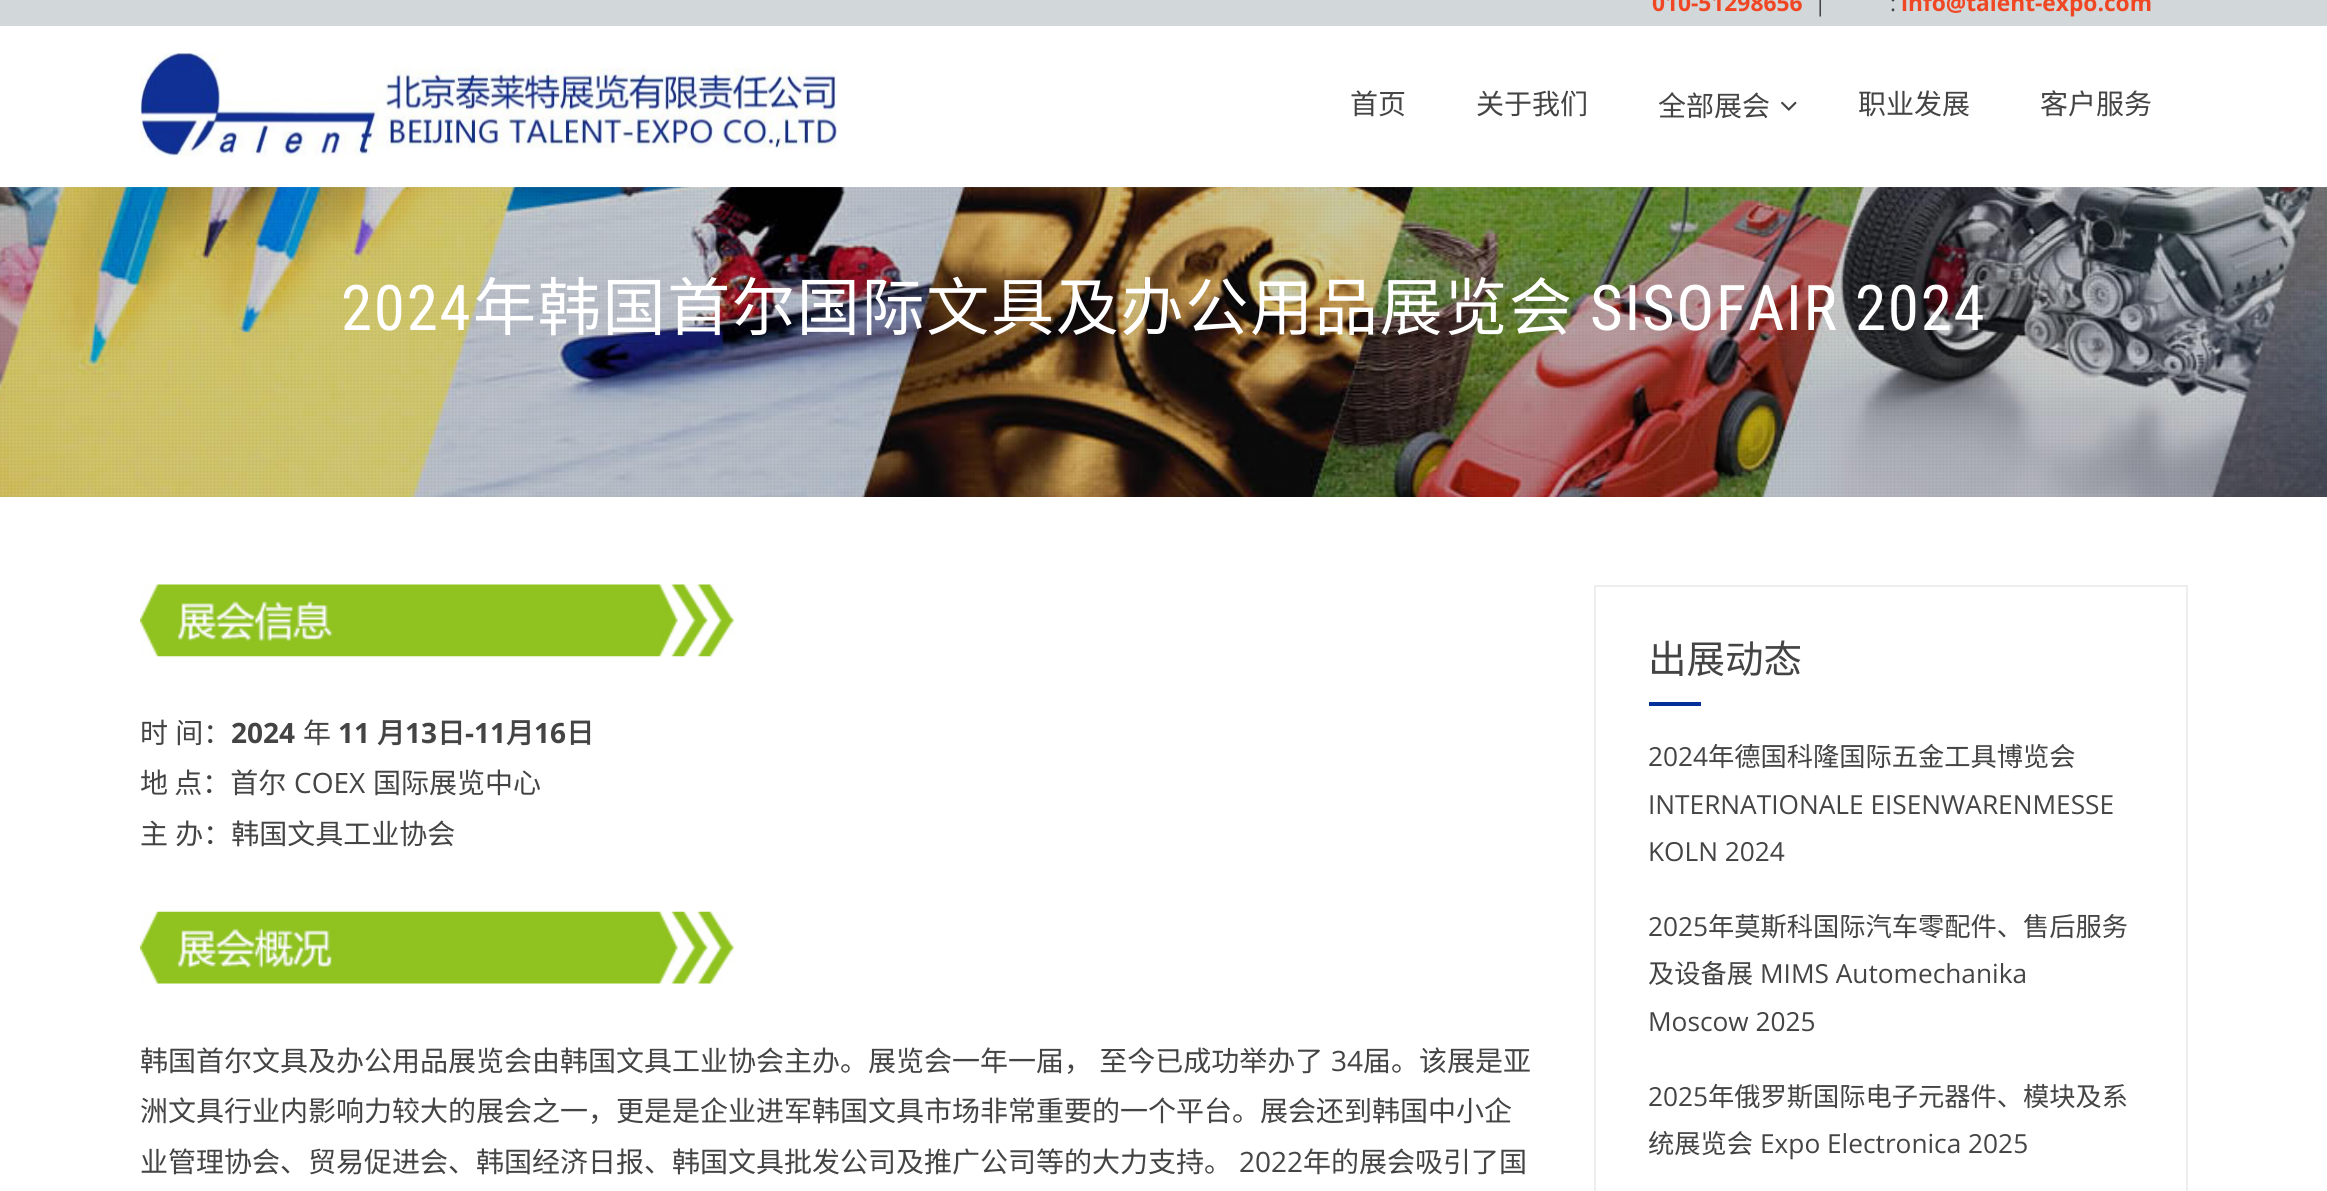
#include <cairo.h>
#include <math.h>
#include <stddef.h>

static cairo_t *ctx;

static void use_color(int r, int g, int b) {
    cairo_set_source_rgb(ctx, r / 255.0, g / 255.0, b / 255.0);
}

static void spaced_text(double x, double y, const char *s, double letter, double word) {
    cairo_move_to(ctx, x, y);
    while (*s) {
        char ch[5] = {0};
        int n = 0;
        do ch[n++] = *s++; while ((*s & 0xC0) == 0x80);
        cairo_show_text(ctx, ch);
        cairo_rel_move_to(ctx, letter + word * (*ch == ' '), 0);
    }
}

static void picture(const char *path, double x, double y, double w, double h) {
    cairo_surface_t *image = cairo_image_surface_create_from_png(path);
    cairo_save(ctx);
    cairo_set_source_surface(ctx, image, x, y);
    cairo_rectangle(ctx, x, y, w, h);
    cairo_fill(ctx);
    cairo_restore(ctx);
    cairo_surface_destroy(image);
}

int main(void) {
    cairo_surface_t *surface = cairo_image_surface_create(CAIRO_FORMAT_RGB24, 2327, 1191);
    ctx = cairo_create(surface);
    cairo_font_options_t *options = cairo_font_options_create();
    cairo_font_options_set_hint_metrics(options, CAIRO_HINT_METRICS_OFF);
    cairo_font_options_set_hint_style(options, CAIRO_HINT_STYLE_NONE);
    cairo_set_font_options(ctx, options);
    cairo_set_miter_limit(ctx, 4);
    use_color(255, 255, 255);
    cairo_paint(ctx);
    use_color(210, 215, 218);
    cairo_rectangle(ctx, 0, 0, 2327, 26);
    cairo_fill(ctx);
    cairo_select_font_face(ctx, "Open Sans", CAIRO_FONT_SLANT_NORMAL, CAIRO_FONT_WEIGHT_BOLD);
    cairo_set_font_size(ctx, 22.75);
    use_color(239, 71, 35);
    cairo_move_to(ctx, 1652, 11);
    cairo_show_text(ctx, "010-51298656");
    cairo_select_font_face(ctx, "Open Sans", CAIRO_FONT_SLANT_NORMAL, CAIRO_FONT_WEIGHT_NORMAL);
    use_color(68, 68, 68);
    cairo_move_to(ctx, 1814, 11);
    cairo_show_text(ctx, "|");
    cairo_move_to(ctx, 1890, 11);
    cairo_show_text(ctx, ":");
    cairo_select_font_face(ctx, "Open Sans", CAIRO_FONT_SLANT_NORMAL, CAIRO_FONT_WEIGHT_BOLD);
    use_color(239, 71, 35);
    cairo_move_to(ctx, 1901, 11);
    cairo_show_text(ctx, "info@talent-expo.com");
    picture("img3.png", 0, 187, 2327, 310);
    picture("img4.png", 0, 187, 2327, 310);
    cairo_set_source_rgba(ctx, 1, 1, 1, 0.05);
    cairo_rectangle(ctx, 0, 187, 2327, 1);
    cairo_fill(ctx);
    picture("img1.png", 140, 53, 697, 105);
    cairo_select_font_face(ctx, "Noto Sans CJK SC", CAIRO_FONT_SLANT_NORMAL, CAIRO_FONT_WEIGHT_NORMAL);
    cairo_set_font_size(ctx, 28);
    use_color(68, 68, 68);
    cairo_move_to(ctx, 1350, 114);
    cairo_show_text(ctx, "首页");
    cairo_move_to(ctx, 1476, 114);
    cairo_show_text(ctx, "关于我们");
    cairo_move_to(ctx, 1658, 116);
    cairo_show_text(ctx, "全部展会");
    picture("img2.png", 1781, 101, 16, 10);
    cairo_move_to(ctx, 1858, 114);
    cairo_show_text(ctx, "职业发展");
    cairo_move_to(ctx, 2040, 114);
    cairo_show_text(ctx, "客户服务");
    cairo_select_font_face(ctx, "Roboto Condensed", CAIRO_FONT_SLANT_NORMAL, CAIRO_FONT_WEIGHT_NORMAL);
    cairo_set_font_size(ctx, 63);
    use_color(255, 255, 255);
    spaced_text(341, 330, "2024", 1.75, 0);
    cairo_select_font_face(ctx, "Noto Sans CJK SC", CAIRO_FONT_SLANT_NORMAL, CAIRO_FONT_WEIGHT_NORMAL);
    spaced_text(473, 330, "年韩国首尔国际文具及办公用品展览会", 1.75, 0);
    cairo_select_font_face(ctx, "Roboto Condensed", CAIRO_FONT_SLANT_NORMAL, CAIRO_FONT_WEIGHT_NORMAL);
    spaced_text(1590, 330, "SISOFAIR 2024", 1.75, 0);
    picture("img5.png", 140, 584, 595, 73);
    cairo_select_font_face(ctx, "Noto Sans CJK SC", CAIRO_FONT_SLANT_NORMAL, CAIRO_FONT_WEIGHT_NORMAL);
    cairo_set_font_size(ctx, 28);
    use_color(68, 68, 68);
    spaced_text(140, 743, "时 间：", 0, 1);
    cairo_select_font_face(ctx, "Open Sans", CAIRO_FONT_SLANT_NORMAL, CAIRO_FONT_WEIGHT_BOLD);
    cairo_move_to(ctx, 231, 743);
    cairo_show_text(ctx, "2024");
    cairo_select_font_face(ctx, "Noto Sans CJK SC", CAIRO_FONT_SLANT_NORMAL, CAIRO_FONT_WEIGHT_NORMAL);
    cairo_move_to(ctx, 303, 743);
    cairo_show_text(ctx, "年");
    cairo_select_font_face(ctx, "Open Sans", CAIRO_FONT_SLANT_NORMAL, CAIRO_FONT_WEIGHT_BOLD);
    cairo_move_to(ctx, 338, 743);
    cairo_show_text(ctx, "11");
    cairo_select_font_face(ctx, "Noto Sans CJK SC", CAIRO_FONT_SLANT_NORMAL, CAIRO_FONT_WEIGHT_BOLD);
    cairo_move_to(ctx, 377, 743);
    cairo_show_text(ctx, "月");
    cairo_select_font_face(ctx, "Open Sans", CAIRO_FONT_SLANT_NORMAL, CAIRO_FONT_WEIGHT_BOLD);
    cairo_move_to(ctx, 405, 743);
    cairo_show_text(ctx, "13");
    cairo_select_font_face(ctx, "Noto Sans CJK SC", CAIRO_FONT_SLANT_NORMAL, CAIRO_FONT_WEIGHT_BOLD);
    cairo_move_to(ctx, 437, 743);
    cairo_show_text(ctx, "日");
    cairo_select_font_face(ctx, "Open Sans", CAIRO_FONT_SLANT_NORMAL, CAIRO_FONT_WEIGHT_BOLD);
    cairo_move_to(ctx, 465, 743);
    cairo_show_text(ctx, "-11");
    cairo_select_font_face(ctx, "Noto Sans CJK SC", CAIRO_FONT_SLANT_NORMAL, CAIRO_FONT_WEIGHT_BOLD);
    cairo_move_to(ctx, 506, 743);
    cairo_show_text(ctx, "月");
    cairo_select_font_face(ctx, "Open Sans", CAIRO_FONT_SLANT_NORMAL, CAIRO_FONT_WEIGHT_BOLD);
    cairo_move_to(ctx, 534, 743);
    cairo_show_text(ctx, "16");
    cairo_select_font_face(ctx, "Noto Sans CJK SC", CAIRO_FONT_SLANT_NORMAL, CAIRO_FONT_WEIGHT_BOLD);
    cairo_move_to(ctx, 566, 743);
    cairo_show_text(ctx, "日");
    cairo_select_font_face(ctx, "Noto Sans CJK SC", CAIRO_FONT_SLANT_NORMAL, CAIRO_FONT_WEIGHT_NORMAL);
    cairo_move_to(ctx, 140, 793);
    cairo_show_text(ctx, "地 点：首尔");
    cairo_select_font_face(ctx, "Open Sans", CAIRO_FONT_SLANT_NORMAL, CAIRO_FONT_WEIGHT_NORMAL);
    cairo_move_to(ctx, 294, 793);
    cairo_show_text(ctx, "COEX");
    cairo_select_font_face(ctx, "Noto Sans CJK SC", CAIRO_FONT_SLANT_NORMAL, CAIRO_FONT_WEIGHT_NORMAL);
    cairo_move_to(ctx, 373, 793);
    cairo_show_text(ctx, "国际展览中心");
    spaced_text(140, 844, "主 办：韩国文具工业协会", 0, 1);
    picture("img6.png", 140, 911, 595, 73);
    spaced_text(140, 1071, "韩国首尔文具及办公用品展览会由韩国文具工业协会主办。展览会一年一届， 至今已成功举办了", 0, 1);
    cairo_select_font_face(ctx, "Open Sans", CAIRO_FONT_SLANT_NORMAL, CAIRO_FONT_WEIGHT_NORMAL);
    cairo_move_to(ctx, 1331, 1071);
    cairo_show_text(ctx, "34");
    cairo_select_font_face(ctx, "Noto Sans CJK SC", CAIRO_FONT_SLANT_NORMAL, CAIRO_FONT_WEIGHT_NORMAL);
    cairo_move_to(ctx, 1363, 1071);
    cairo_show_text(ctx, "届。该展是亚");
    cairo_move_to(ctx, 140, 1121);
    cairo_show_text(ctx, "洲文具行业内影响力较大的展会之一，更是是企业进军韩国文具市场非常重要的一个平台。展会还到韩国中小企");
    cairo_move_to(ctx, 140, 1172);
    cairo_show_text(ctx, "业管理协会、贸易促进会、韩国经济日报、韩国文具批发公司及推广公司等的大力支持。");
    cairo_select_font_face(ctx, "Open Sans", CAIRO_FONT_SLANT_NORMAL, CAIRO_FONT_WEIGHT_NORMAL);
    cairo_move_to(ctx, 1239, 1172);
    cairo_show_text(ctx, "2022");
    cairo_select_font_face(ctx, "Noto Sans CJK SC", CAIRO_FONT_SLANT_NORMAL, CAIRO_FONT_WEIGHT_NORMAL);
    cairo_move_to(ctx, 1303, 1172);
    cairo_show_text(ctx, "年的展会吸引了国");
    cairo_rectangle(ctx, 1595, 586, 592, 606);
    use_color(238, 238, 238);
    cairo_stroke(ctx);
    cairo_set_font_size(ctx, 38.5);
    use_color(68, 68, 68);
    cairo_move_to(ctx, 1648, 673);
    cairo_show_text(ctx, "出展动态");
    use_color(6, 48, 153);
    cairo_rectangle(ctx, 1649, 702, 52, 4);
    cairo_fill(ctx);
    cairo_select_font_face(ctx, "Open Sans", CAIRO_FONT_SLANT_NORMAL, CAIRO_FONT_WEIGHT_NORMAL);
    cairo_set_font_size(ctx, 26.25);
    use_color(68, 68, 68);
    cairo_move_to(ctx, 1648, 766);
    cairo_show_text(ctx, "2024");
    cairo_select_font_face(ctx, "Noto Sans CJK SC", CAIRO_FONT_SLANT_NORMAL, CAIRO_FONT_WEIGHT_NORMAL);
    cairo_move_to(ctx, 1708, 766);
    cairo_show_text(ctx, "年德国科隆国际五金工具博览会");
    cairo_select_font_face(ctx, "Open Sans", CAIRO_FONT_SLANT_NORMAL, CAIRO_FONT_WEIGHT_NORMAL);
    cairo_move_to(ctx, 1648, 814);
    cairo_show_text(ctx, "INTERNATIONALE EISENWARENMESSE");
    cairo_move_to(ctx, 1648, 861);
    cairo_show_text(ctx, "KOLN 2024");
    cairo_move_to(ctx, 1648, 936);
    cairo_show_text(ctx, "2025");
    cairo_select_font_face(ctx, "Noto Sans CJK SC", CAIRO_FONT_SLANT_NORMAL, CAIRO_FONT_WEIGHT_NORMAL);
    cairo_move_to(ctx, 1708, 936);
    cairo_show_text(ctx, "年莫斯科国际汽车零配件、售后服务");
    cairo_move_to(ctx, 1648, 983);
    cairo_show_text(ctx, "及设备展");
    cairo_select_font_face(ctx, "Open Sans", CAIRO_FONT_SLANT_NORMAL, CAIRO_FONT_WEIGHT_NORMAL);
    cairo_move_to(ctx, 1760, 983);
    cairo_show_text(ctx, "MIMS Automechanika");
    cairo_move_to(ctx, 1648, 1031);
    cairo_show_text(ctx, "Moscow 2025");
    cairo_move_to(ctx, 1648, 1106);
    cairo_show_text(ctx, "2025");
    cairo_select_font_face(ctx, "Noto Sans CJK SC", CAIRO_FONT_SLANT_NORMAL, CAIRO_FONT_WEIGHT_NORMAL);
    cairo_move_to(ctx, 1708, 1106);
    cairo_show_text(ctx, "年俄罗斯国际电子元器件、模块及系");
    cairo_move_to(ctx, 1648, 1153);
    cairo_show_text(ctx, "统展览会");
    cairo_select_font_face(ctx, "Open Sans", CAIRO_FONT_SLANT_NORMAL, CAIRO_FONT_WEIGHT_NORMAL);
    cairo_move_to(ctx, 1760, 1153);
    cairo_show_text(ctx, "Expo Electronica 2025");
    cairo_surface_write_to_png(surface, "result.png");
    cairo_font_options_destroy(options);
    cairo_destroy(ctx);
    cairo_surface_destroy(surface);
    return 0;
}
